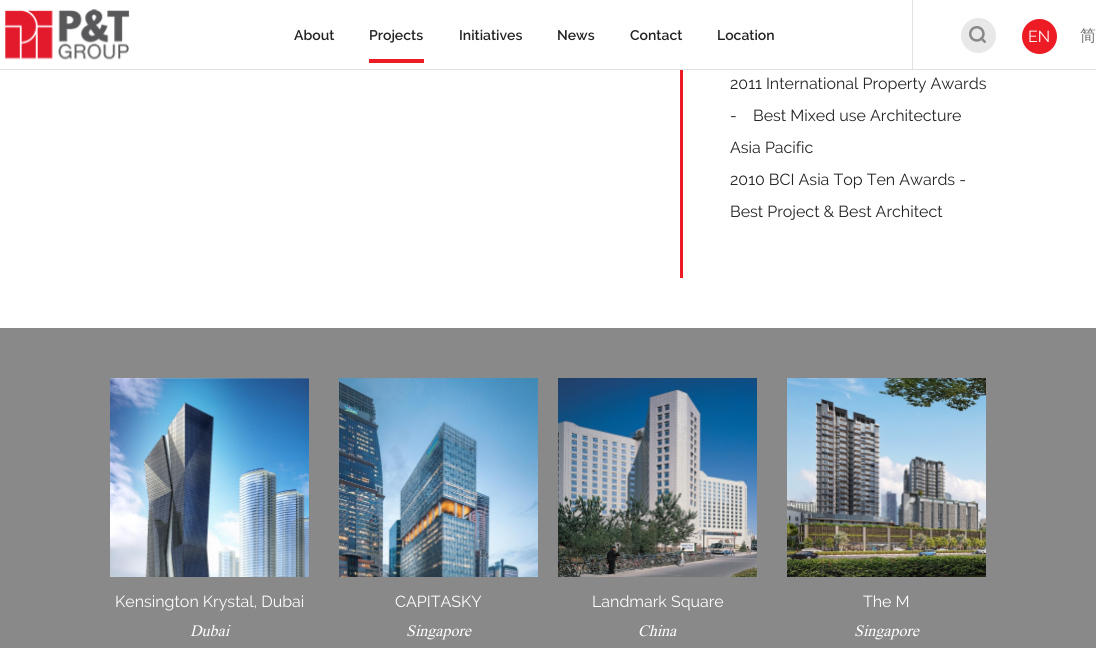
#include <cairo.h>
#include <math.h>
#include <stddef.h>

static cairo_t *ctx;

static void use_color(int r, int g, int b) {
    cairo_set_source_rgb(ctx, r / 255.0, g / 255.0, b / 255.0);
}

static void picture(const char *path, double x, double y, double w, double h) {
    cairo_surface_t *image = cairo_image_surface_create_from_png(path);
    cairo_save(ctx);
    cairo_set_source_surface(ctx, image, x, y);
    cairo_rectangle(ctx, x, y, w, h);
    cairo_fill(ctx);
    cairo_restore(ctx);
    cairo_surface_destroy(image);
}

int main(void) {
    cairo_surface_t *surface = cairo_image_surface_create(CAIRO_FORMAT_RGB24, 1096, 648);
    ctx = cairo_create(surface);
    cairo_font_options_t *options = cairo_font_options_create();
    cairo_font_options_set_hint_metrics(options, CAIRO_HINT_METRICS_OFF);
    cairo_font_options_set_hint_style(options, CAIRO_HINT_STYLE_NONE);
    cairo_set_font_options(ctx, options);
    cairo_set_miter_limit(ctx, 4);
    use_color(255, 255, 255);
    cairo_paint(ctx);
    use_color(225, 226, 226);
    cairo_rectangle(ctx, 0, 69, 1096, 1);
    cairo_fill(ctx);
    picture("img1.png", 5, 9, 125, 51);
    cairo_select_font_face(ctx, "Raleway SemiBold", CAIRO_FONT_SLANT_NORMAL, CAIRO_FONT_WEIGHT_NORMAL);
    cairo_set_font_size(ctx, 14);
    use_color(36, 35, 35);
    cairo_move_to(ctx, 294, 40);
    cairo_show_text(ctx, "About");
    cairo_move_to(ctx, 369, 40);
    cairo_show_text(ctx, "Projects");
    use_color(237, 28, 36);
    cairo_rectangle(ctx, 369, 59, 55, 4);
    cairo_fill(ctx);
    use_color(36, 35, 35);
    cairo_move_to(ctx, 459, 40);
    cairo_show_text(ctx, "Initiatives");
    cairo_move_to(ctx, 557, 40);
    cairo_show_text(ctx, "News");
    cairo_move_to(ctx, 630, 40);
    cairo_show_text(ctx, "Contact");
    cairo_move_to(ctx, 717, 40);
    cairo_show_text(ctx, "Location");
    use_color(225, 226, 226);
    cairo_rectangle(ctx, 912, 0, 1, 69);
    cairo_fill(ctx);
    use_color(232, 232, 232);
    cairo_arc(ctx, 978.5, 35.5, 17.5, 0, 2 * M_PI);
    cairo_fill(ctx);
    picture("img2.png", 969, 26, 17, 17);
    use_color(237, 28, 36);
    cairo_arc(ctx, 1039.5, 36.5, 17.5, 0, 2 * M_PI);
    cairo_fill(ctx);
    cairo_select_font_face(ctx, "Raleway", CAIRO_FONT_SLANT_NORMAL, CAIRO_FONT_WEIGHT_NORMAL);
    cairo_set_font_size(ctx, 16);
    use_color(255, 255, 255);
    cairo_move_to(ctx, 1028, 42);
    cairo_show_text(ctx, "EN");
    cairo_select_font_face(ctx, "WenQuanYi Zen Hei Medium", CAIRO_FONT_SLANT_NORMAL, CAIRO_FONT_WEIGHT_NORMAL);
    use_color(117, 115, 115);
    cairo_move_to(ctx, 1080, 41);
    cairo_show_text(ctx, "简");
    use_color(237, 28, 36);
    cairo_rectangle(ctx, 680, 70, 3, 208);
    cairo_fill(ctx);
    cairo_select_font_face(ctx, "Raleway", CAIRO_FONT_SLANT_NORMAL, CAIRO_FONT_WEIGHT_NORMAL);
    use_color(36, 35, 35);
    cairo_move_to(ctx, 730, 89);
    cairo_show_text(ctx, "2011 International Property Awards");
    cairo_move_to(ctx, 730, 121);
    cairo_show_text(ctx, "-");
    cairo_move_to(ctx, 753, 121);
    cairo_show_text(ctx, "Best Mixed use Architecture");
    cairo_move_to(ctx, 730, 153);
    cairo_show_text(ctx, "Asia Pacific");
    cairo_move_to(ctx, 730, 185);
    cairo_show_text(ctx, "2010 BCI Asia Top Ten Awards -");
    cairo_move_to(ctx, 730, 217);
    cairo_show_text(ctx, "Best Project & Best Architect");
    use_color(137, 137, 137);
    cairo_rectangle(ctx, 0, 328, 1096, 320);
    cairo_fill(ctx);
    picture("img3.png", 110, 378, 199, 199);
    use_color(255, 255, 255);
    cairo_move_to(ctx, 115, 607);
    cairo_show_text(ctx, "Kensington Krystal, Dubai");
    cairo_select_font_face(ctx, "Times New Roman", CAIRO_FONT_SLANT_ITALIC, CAIRO_FONT_WEIGHT_NORMAL);
    cairo_move_to(ctx, 190, 636);
    cairo_show_text(ctx, "Dubai");
    picture("img4.png", 339, 378, 199, 199);
    cairo_select_font_face(ctx, "Raleway", CAIRO_FONT_SLANT_NORMAL, CAIRO_FONT_WEIGHT_NORMAL);
    cairo_move_to(ctx, 395, 607);
    cairo_show_text(ctx, "CAPITASKY");
    cairo_select_font_face(ctx, "Times New Roman", CAIRO_FONT_SLANT_ITALIC, CAIRO_FONT_WEIGHT_NORMAL);
    cairo_move_to(ctx, 406, 636);
    cairo_show_text(ctx, "Singapore");
    picture("img5.png", 558, 378, 199, 199);
    cairo_select_font_face(ctx, "Raleway", CAIRO_FONT_SLANT_NORMAL, CAIRO_FONT_WEIGHT_NORMAL);
    cairo_move_to(ctx, 592, 607);
    cairo_show_text(ctx, "Landmark Square");
    cairo_select_font_face(ctx, "Times New Roman", CAIRO_FONT_SLANT_ITALIC, CAIRO_FONT_WEIGHT_NORMAL);
    cairo_move_to(ctx, 638, 636);
    cairo_show_text(ctx, "China");
    picture("img6.png", 787, 378, 199, 199);
    cairo_select_font_face(ctx, "Raleway", CAIRO_FONT_SLANT_NORMAL, CAIRO_FONT_WEIGHT_NORMAL);
    cairo_move_to(ctx, 863, 607);
    cairo_show_text(ctx, "The M");
    cairo_select_font_face(ctx, "Times New Roman", CAIRO_FONT_SLANT_ITALIC, CAIRO_FONT_WEIGHT_NORMAL);
    cairo_move_to(ctx, 854, 636);
    cairo_show_text(ctx, "Singapore");
    cairo_surface_write_to_png(surface, "result.png");
    cairo_font_options_destroy(options);
    cairo_destroy(ctx);
    cairo_surface_destroy(surface);
    return 0;
}
